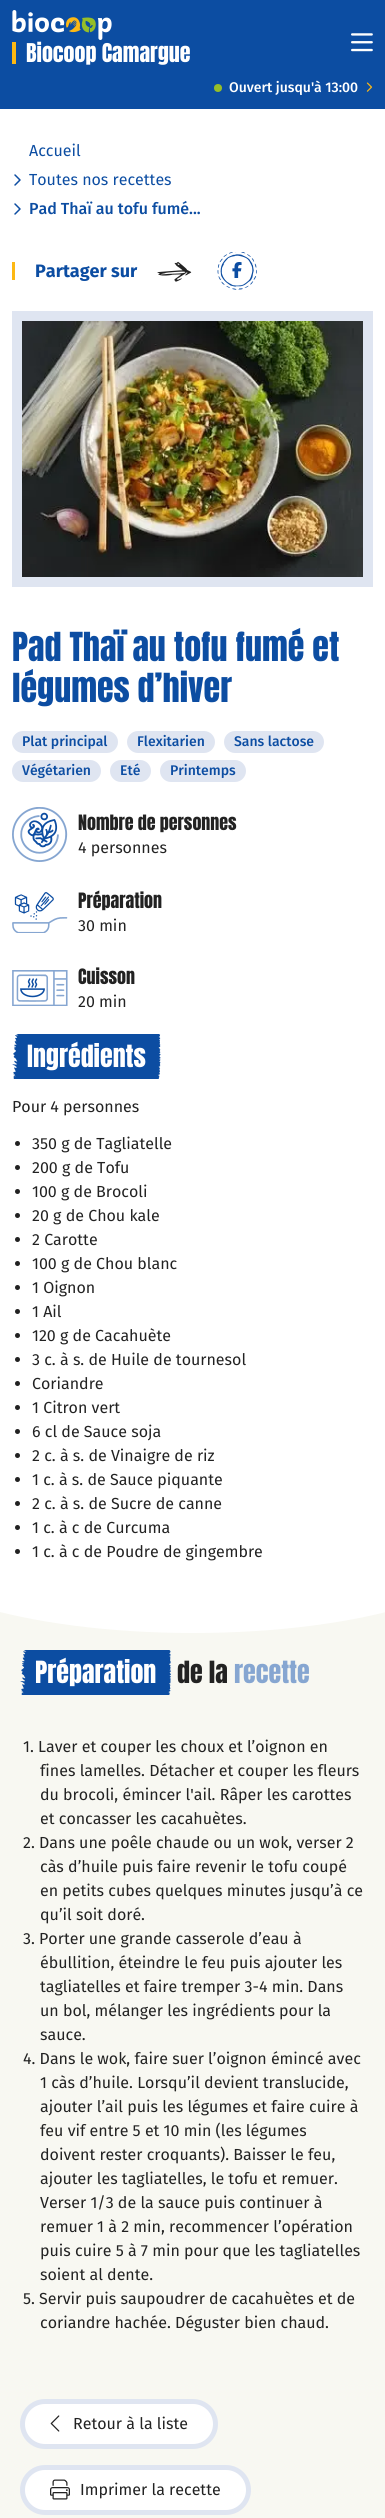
#include <cairo.h>
#include <math.h>
#include <stddef.h>

static cairo_t *ctx;

static void use_color(int r, int g, int b) {
    cairo_set_source_rgb(ctx, r / 255.0, g / 255.0, b / 255.0);
}

static void round_rect(double x, double y, double w, double h, double r) {
    cairo_new_sub_path(ctx);
    cairo_arc(ctx, x + w - r, y + h - r, r, 0, M_PI / 2);
    cairo_arc(ctx, x + r, y + h - r, r, M_PI / 2, M_PI);
    cairo_arc(ctx, x + r, y + r, r, M_PI, 1.5 * M_PI);
    cairo_arc(ctx, x + w - r, y + r, r, 1.5 * M_PI, 2 * M_PI);
    cairo_close_path(ctx);
}

static void picture(const char *path, double x, double y, double w, double h) {
    cairo_surface_t *image = cairo_image_surface_create_from_png(path);
    cairo_save(ctx);
    cairo_set_source_surface(ctx, image, x, y);
    cairo_rectangle(ctx, x, y, w, h);
    cairo_fill(ctx);
    cairo_restore(ctx);
    cairo_surface_destroy(image);
}

int main(void) {
    cairo_surface_t *surface = cairo_image_surface_create(CAIRO_FORMAT_RGB24, 385, 2518);
    ctx = cairo_create(surface);
    cairo_font_options_t *options = cairo_font_options_create();
    cairo_font_options_set_hint_metrics(options, CAIRO_HINT_METRICS_OFF);
    cairo_font_options_set_hint_style(options, CAIRO_HINT_STYLE_NONE);
    cairo_set_font_options(ctx, options);
    cairo_set_miter_limit(ctx, 4);
    use_color(255, 255, 255);
    cairo_paint(ctx);
    use_color(12, 77, 162);
    cairo_rectangle(ctx, 0, 0, 385, 109);
    cairo_fill(ctx);
    picture("img1.png", 12, 10, 100, 30);
    use_color(253, 184, 19);
    cairo_rectangle(ctx, 12, 42, 4, 22);
    cairo_fill(ctx);
    cairo_select_font_face(ctx, "Anton", CAIRO_FONT_SLANT_NORMAL, CAIRO_FONT_WEIGHT_NORMAL);
    cairo_set_font_size(ctx, 22);
    use_color(255, 255, 255);
    cairo_move_to(ctx, 26, 62);
    cairo_show_text(ctx, "Biocoop Camargue");
    picture("img2.png", 351, 33, 22, 19);
    use_color(150, 190, 40);
    cairo_arc(ctx, 218, 88, 4, 0, 2 * M_PI);
    cairo_fill(ctx);
    cairo_select_font_face(ctx, "Fira Sans Medium", CAIRO_FONT_SLANT_NORMAL, CAIRO_FONT_WEIGHT_NORMAL);
    cairo_set_font_size(ctx, 14);
    use_color(255, 255, 255);
    cairo_move_to(ctx, 229, 92);
    cairo_show_text(ctx, "Ouvert jusqu'à 13:00");
    picture("img3.png", 366, 82, 7, 10);
    cairo_select_font_face(ctx, "Fira Sans", CAIRO_FONT_SLANT_NORMAL, CAIRO_FONT_WEIGHT_NORMAL);
    cairo_set_font_size(ctx, 16);
    use_color(12, 77, 162);
    cairo_move_to(ctx, 29, 156);
    cairo_show_text(ctx, "Accueil");
    picture("img4.png", 14, 174, 7, 12);
    cairo_move_to(ctx, 29, 185);
    cairo_show_text(ctx, "Toutes nos recettes");
    picture("img4.png", 14, 203, 7, 12);
    cairo_select_font_face(ctx, "Fira Sans Medium", CAIRO_FONT_SLANT_NORMAL, CAIRO_FONT_WEIGHT_NORMAL);
    cairo_move_to(ctx, 29, 214);
    cairo_show_text(ctx, "Pad Thaï au tofu fumé...");
    use_color(253, 184, 19);
    cairo_rectangle(ctx, 12, 262, 3, 18);
    cairo_fill(ctx);
    cairo_select_font_face(ctx, "Fira Sans", CAIRO_FONT_SLANT_NORMAL, CAIRO_FONT_WEIGHT_BOLD);
    cairo_set_font_size(ctx, 18);
    use_color(12, 77, 162);
    cairo_move_to(ctx, 35, 277);
    cairo_show_text(ctx, "Partager sur");
    picture("img5.png", 157, 261, 35, 21);
    picture("img6.png", 217, 252, 40, 38);
    picture("img7.png", 232, 262, 10, 16);
    cairo_rectangle(ctx, 17, 316, 351, 266);
    use_color(223, 229, 241);
    cairo_set_line_width(ctx, 10);
    cairo_stroke(ctx);
    picture("img8.png", 22, 321, 341, 256);
    cairo_select_font_face(ctx, "Anton", CAIRO_FONT_SLANT_NORMAL, CAIRO_FONT_WEIGHT_NORMAL);
    cairo_set_font_size(ctx, 34);
    use_color(12, 77, 162);
    cairo_move_to(ctx, 12, 661);
    cairo_show_text(ctx, "Pad Thaï au tofu fumé et");
    cairo_move_to(ctx, 12, 702);
    cairo_show_text(ctx, "légumes d’hiver");
    use_color(223, 229, 241);
    round_rect(12, 731, 106, 22, 11);
    cairo_fill(ctx);
    cairo_select_font_face(ctx, "Fira Sans Medium", CAIRO_FONT_SLANT_NORMAL, CAIRO_FONT_WEIGHT_NORMAL);
    cairo_set_font_size(ctx, 14);
    use_color(12, 77, 162);
    cairo_move_to(ctx, 22, 746);
    cairo_show_text(ctx, "Plat principal");
    use_color(223, 229, 241);
    round_rect(127, 731, 88, 22, 11);
    cairo_fill(ctx);
    use_color(12, 77, 162);
    cairo_move_to(ctx, 137, 746);
    cairo_show_text(ctx, "Flexitarien");
    use_color(223, 229, 241);
    round_rect(224, 731, 100, 22, 11);
    cairo_fill(ctx);
    use_color(12, 77, 162);
    cairo_move_to(ctx, 234, 746);
    cairo_show_text(ctx, "Sans lactose");
    use_color(223, 229, 241);
    round_rect(12, 760, 89, 22, 11);
    cairo_fill(ctx);
    use_color(12, 77, 162);
    cairo_move_to(ctx, 22, 775);
    cairo_show_text(ctx, "Végétarien");
    use_color(223, 229, 241);
    round_rect(110, 760, 41, 22, 11);
    cairo_fill(ctx);
    use_color(12, 77, 162);
    cairo_move_to(ctx, 120, 775);
    cairo_show_text(ctx, "Eté");
    use_color(223, 229, 241);
    round_rect(160, 760, 86, 22, 11);
    cairo_fill(ctx);
    use_color(12, 77, 162);
    cairo_move_to(ctx, 170, 775);
    cairo_show_text(ctx, "Printemps");
    picture("img9.png", 12, 807, 56, 55);
    cairo_select_font_face(ctx, "Anton", CAIRO_FONT_SLANT_NORMAL, CAIRO_FONT_WEIGHT_NORMAL);
    cairo_set_font_size(ctx, 18);
    use_color(34, 34, 34);
    cairo_move_to(ctx, 78, 830);
    cairo_show_text(ctx, "Nombre de personnes");
    cairo_select_font_face(ctx, "Fira Sans", CAIRO_FONT_SLANT_NORMAL, CAIRO_FONT_WEIGHT_NORMAL);
    cairo_set_font_size(ctx, 16);
    cairo_move_to(ctx, 78, 853);
    cairo_show_text(ctx, "4 personnes");
    picture("img10.png", 12, 892, 56, 41);
    cairo_select_font_face(ctx, "Anton", CAIRO_FONT_SLANT_NORMAL, CAIRO_FONT_WEIGHT_NORMAL);
    cairo_set_font_size(ctx, 18);
    cairo_move_to(ctx, 78, 908);
    cairo_show_text(ctx, "Préparation");
    cairo_select_font_face(ctx, "Fira Sans", CAIRO_FONT_SLANT_NORMAL, CAIRO_FONT_WEIGHT_NORMAL);
    cairo_set_font_size(ctx, 16);
    cairo_move_to(ctx, 78, 931);
    cairo_show_text(ctx, "30 min");
    picture("img11.png", 12, 970, 56, 36);
    cairo_select_font_face(ctx, "Anton", CAIRO_FONT_SLANT_NORMAL, CAIRO_FONT_WEIGHT_NORMAL);
    cairo_set_font_size(ctx, 18);
    cairo_move_to(ctx, 78, 984);
    cairo_show_text(ctx, "Cuisson");
    cairo_select_font_face(ctx, "Fira Sans", CAIRO_FONT_SLANT_NORMAL, CAIRO_FONT_WEIGHT_NORMAL);
    cairo_set_font_size(ctx, 16);
    cairo_move_to(ctx, 78, 1007);
    cairo_show_text(ctx, "20 min");
    picture("img12.png", 12, 1034, 149, 45);
    cairo_select_font_face(ctx, "Anton", CAIRO_FONT_SLANT_NORMAL, CAIRO_FONT_WEIGHT_NORMAL);
    cairo_set_font_size(ctx, 26);
    use_color(255, 255, 255);
    cairo_move_to(ctx, 27, 1067);
    cairo_show_text(ctx, "Ingrédients");
    cairo_select_font_face(ctx, "Fira Sans", CAIRO_FONT_SLANT_NORMAL, CAIRO_FONT_WEIGHT_NORMAL);
    cairo_set_font_size(ctx, 16);
    use_color(34, 34, 34);
    cairo_move_to(ctx, 12, 1112);
    cairo_show_text(ctx, "Pour 4 personnes");
    cairo_new_path(ctx);
    cairo_arc(ctx, 17.5, 1143.5, 2.5, 0, 2 * M_PI);
    cairo_fill(ctx);
    cairo_move_to(ctx, 32, 1149);
    cairo_show_text(ctx, "350 g de Tagliatelle");
    cairo_new_path(ctx);
    cairo_arc(ctx, 17.5, 1167.5, 2.5, 0, 2 * M_PI);
    cairo_fill(ctx);
    cairo_move_to(ctx, 32, 1173);
    cairo_show_text(ctx, "200 g de Tofu");
    cairo_new_path(ctx);
    cairo_arc(ctx, 17.5, 1191.5, 2.5, 0, 2 * M_PI);
    cairo_fill(ctx);
    cairo_move_to(ctx, 32, 1197);
    cairo_show_text(ctx, "100 g de Brocoli");
    cairo_new_path(ctx);
    cairo_arc(ctx, 17.5, 1215.5, 2.5, 0, 2 * M_PI);
    cairo_fill(ctx);
    cairo_move_to(ctx, 32, 1221);
    cairo_show_text(ctx, "20 g de Chou kale");
    cairo_new_path(ctx);
    cairo_arc(ctx, 17.5, 1239.5, 2.5, 0, 2 * M_PI);
    cairo_fill(ctx);
    cairo_move_to(ctx, 32, 1245);
    cairo_show_text(ctx, "2 Carotte");
    cairo_new_path(ctx);
    cairo_arc(ctx, 17.5, 1263.5, 2.5, 0, 2 * M_PI);
    cairo_fill(ctx);
    cairo_move_to(ctx, 32, 1269);
    cairo_show_text(ctx, "100 g de Chou blanc");
    cairo_new_path(ctx);
    cairo_arc(ctx, 17.5, 1287.5, 2.5, 0, 2 * M_PI);
    cairo_fill(ctx);
    cairo_move_to(ctx, 32, 1293);
    cairo_show_text(ctx, "1 Oignon");
    cairo_new_path(ctx);
    cairo_arc(ctx, 17.5, 1311.5, 2.5, 0, 2 * M_PI);
    cairo_fill(ctx);
    cairo_move_to(ctx, 32, 1317);
    cairo_show_text(ctx, "1 Ail");
    cairo_new_path(ctx);
    cairo_arc(ctx, 17.5, 1335.5, 2.5, 0, 2 * M_PI);
    cairo_fill(ctx);
    cairo_move_to(ctx, 32, 1341);
    cairo_show_text(ctx, "120 g de Cacahuète");
    cairo_new_path(ctx);
    cairo_arc(ctx, 17.5, 1359.5, 2.5, 0, 2 * M_PI);
    cairo_fill(ctx);
    cairo_move_to(ctx, 32, 1365);
    cairo_show_text(ctx, "3 c. à s. de Huile de tournesol");
    cairo_new_path(ctx);
    cairo_arc(ctx, 17.5, 1383.5, 2.5, 0, 2 * M_PI);
    cairo_fill(ctx);
    cairo_move_to(ctx, 32, 1389);
    cairo_show_text(ctx, "Coriandre");
    cairo_new_path(ctx);
    cairo_arc(ctx, 17.5, 1407.5, 2.5, 0, 2 * M_PI);
    cairo_fill(ctx);
    cairo_move_to(ctx, 32, 1413);
    cairo_show_text(ctx, "1 Citron vert");
    cairo_new_path(ctx);
    cairo_arc(ctx, 17.5, 1431.5, 2.5, 0, 2 * M_PI);
    cairo_fill(ctx);
    cairo_move_to(ctx, 32, 1437);
    cairo_show_text(ctx, "6 cl de Sauce soja");
    cairo_new_path(ctx);
    cairo_arc(ctx, 17.5, 1455.5, 2.5, 0, 2 * M_PI);
    cairo_fill(ctx);
    cairo_move_to(ctx, 32, 1461);
    cairo_show_text(ctx, "2 c. à s. de Vinaigre de riz");
    cairo_new_path(ctx);
    cairo_arc(ctx, 17.5, 1479.5, 2.5, 0, 2 * M_PI);
    cairo_fill(ctx);
    cairo_move_to(ctx, 32, 1485);
    cairo_show_text(ctx, "1 c. à s. de Sauce piquante");
    cairo_new_path(ctx);
    cairo_arc(ctx, 17.5, 1503.5, 2.5, 0, 2 * M_PI);
    cairo_fill(ctx);
    cairo_move_to(ctx, 32, 1509);
    cairo_show_text(ctx, "2 c. à s. de Sucre de canne");
    cairo_new_path(ctx);
    cairo_arc(ctx, 17.5, 1527.5, 2.5, 0, 2 * M_PI);
    cairo_fill(ctx);
    cairo_move_to(ctx, 32, 1533);
    cairo_show_text(ctx, "1 c. à c de Curcuma");
    cairo_new_path(ctx);
    cairo_arc(ctx, 17.5, 1551.5, 2.5, 0, 2 * M_PI);
    cairo_fill(ctx);
    cairo_move_to(ctx, 32, 1557);
    cairo_show_text(ctx, "1 c. à c de Poudre de gingembre");
    use_color(248, 248, 242);
    cairo_rectangle(ctx, 0, 1612, 385, 906);
    cairo_fill(ctx);
    cairo_save(ctx);
    cairo_rectangle(ctx, 0, 1580, 385, 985);
    cairo_clip(ctx);
    use_color(255, 255, 255);
    cairo_new_path(ctx);
    cairo_move_to(ctx, 193, 1443);
    cairo_curve_to(ctx, 363, 1443, 501, 1485.5, 501, 1538);
    cairo_curve_to(ctx, 501, 1590.5, 363, 1633, 193, 1633);
    cairo_curve_to(ctx, 23, 1633, -115, 1590.5, -115, 1538);
    cairo_curve_to(ctx, -115, 1485.5, 23, 1443, 193, 1443);
    cairo_close_path(ctx);
    cairo_fill(ctx);
    cairo_restore(ctx);
    picture("img13.png", 20, 1650, 151, 45);
    cairo_select_font_face(ctx, "Anton", CAIRO_FONT_SLANT_NORMAL, CAIRO_FONT_WEIGHT_NORMAL);
    cairo_set_font_size(ctx, 26);
    use_color(255, 255, 255);
    cairo_move_to(ctx, 35, 1683);
    cairo_show_text(ctx, "Préparation");
    use_color(34, 34, 34);
    cairo_move_to(ctx, 177, 1683);
    cairo_show_text(ctx, "de la");
    use_color(134, 166, 209);
    cairo_move_to(ctx, 234, 1683);
    cairo_show_text(ctx, "recette");
    cairo_select_font_face(ctx, "Fira Sans", CAIRO_FONT_SLANT_NORMAL, CAIRO_FONT_WEIGHT_NORMAL);
    cairo_set_font_size(ctx, 16);
    use_color(34, 34, 34);
    cairo_move_to(ctx, 23, 1752);
    cairo_show_text(ctx, "1. Laver et couper les choux et l’oignon en");
    cairo_move_to(ctx, 40, 1776);
    cairo_show_text(ctx, "fines lamelles. Détacher et couper les fleurs");
    cairo_move_to(ctx, 40, 1800);
    cairo_show_text(ctx, "du brocoli, émincer l'ail. Râper les carottes");
    cairo_move_to(ctx, 40, 1824);
    cairo_show_text(ctx, "et concasser les cacahuètes.");
    cairo_move_to(ctx, 23, 1848);
    cairo_show_text(ctx, "2. Dans une poêle chaude ou un wok, verser 2");
    cairo_move_to(ctx, 40, 1872);
    cairo_show_text(ctx, "càs d’huile puis faire revenir le tofu coupé");
    cairo_move_to(ctx, 40, 1896);
    cairo_show_text(ctx, "en petits cubes quelques minutes jusqu’à ce");
    cairo_move_to(ctx, 40, 1920);
    cairo_show_text(ctx, "qu’il soit doré.");
    cairo_move_to(ctx, 23, 1944);
    cairo_show_text(ctx, "3. Porter une grande casserole d’eau à");
    cairo_move_to(ctx, 40, 1968);
    cairo_show_text(ctx, "ébullition, éteindre le feu puis ajouter les");
    cairo_move_to(ctx, 40, 1992);
    cairo_show_text(ctx, "tagliatelles et faire tremper 3-4 min. Dans");
    cairo_move_to(ctx, 40, 2016);
    cairo_show_text(ctx, "un bol, mélanger les ingrédients pour la");
    cairo_move_to(ctx, 40, 2040);
    cairo_show_text(ctx, "sauce.");
    cairo_move_to(ctx, 23, 2064);
    cairo_show_text(ctx, "4. Dans le wok, faire suer l’oignon émincé avec");
    cairo_move_to(ctx, 40, 2088);
    cairo_show_text(ctx, "1 càs d’huile. Lorsqu’il devient translucide,");
    cairo_move_to(ctx, 40, 2112);
    cairo_show_text(ctx, "ajouter l’ail puis les légumes et faire cuire à");
    cairo_move_to(ctx, 40, 2136);
    cairo_show_text(ctx, "feu vif entre 5 et 10 min (les légumes");
    cairo_move_to(ctx, 40, 2160);
    cairo_show_text(ctx, "doivent rester croquants). Baisser le feu,");
    cairo_move_to(ctx, 40, 2184);
    cairo_show_text(ctx, "ajouter les tagliatelles, le tofu et remuer.");
    cairo_move_to(ctx, 40, 2208);
    cairo_show_text(ctx, "Verser 1/3 de la sauce puis continuer à");
    cairo_move_to(ctx, 40, 2232);
    cairo_show_text(ctx, "remuer 1 à 2 min, recommencer l’opération");
    cairo_move_to(ctx, 40, 2256);
    cairo_show_text(ctx, "puis cuire 5 à 7 min pour que les tagliatelles");
    cairo_move_to(ctx, 40, 2280);
    cairo_show_text(ctx, "soient al dente.");
    cairo_move_to(ctx, 23, 2304);
    cairo_show_text(ctx, "5. Servir puis saupoudrer de cacahuètes et de");
    cairo_move_to(ctx, 40, 2328);
    cairo_show_text(ctx, "coriandre hachée. Déguster bien chaud.");
    use_color(255, 255, 255);
    round_rect(22.5, 2401.5, 193, 45, 22.5);
    cairo_fill_preserve(ctx);
    use_color(223, 229, 241);
    cairo_set_line_width(ctx, 5);
    cairo_stroke(ctx);
    picture("img14.png", 50, 2415, 10, 17);
    use_color(34, 34, 34);
    cairo_move_to(ctx, 73, 2429);
    cairo_show_text(ctx, "Retour à la liste");
    use_color(255, 255, 255);
    round_rect(22.5, 2467.5, 226, 45, 22.5);
    cairo_fill_preserve(ctx);
    use_color(223, 229, 241);
    cairo_stroke(ctx);
    picture("img15.png", 50, 2479, 20, 21);
    use_color(34, 34, 34);
    cairo_move_to(ctx, 80, 2495);
    cairo_show_text(ctx, "Imprimer la recette");
    cairo_surface_write_to_png(surface, "result.png");
    cairo_font_options_destroy(options);
    cairo_destroy(ctx);
    cairo_surface_destroy(surface);
    return 0;
}
